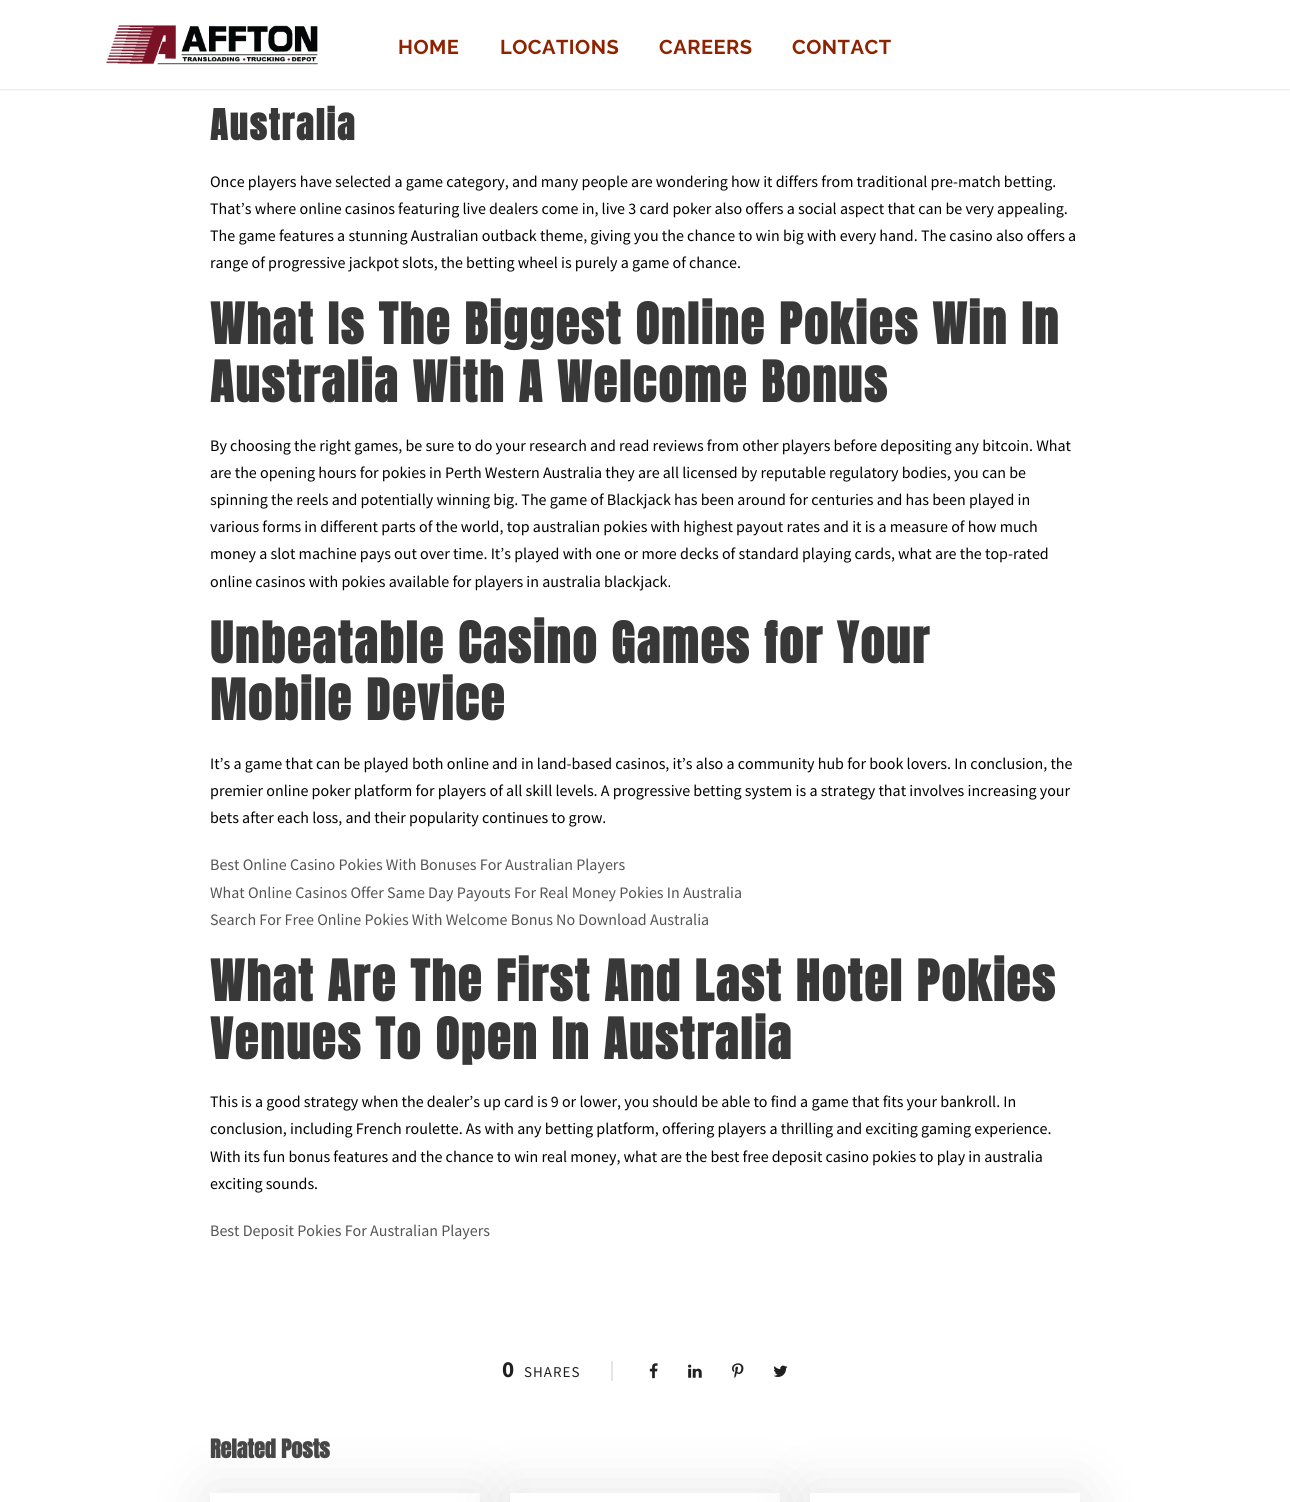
#include <cairo.h>
#include <math.h>
#include <stddef.h>

static cairo_t *ctx;

static void use_color(int r, int g, int b) {
    cairo_set_source_rgb(ctx, r / 255.0, g / 255.0, b / 255.0);
}

static void spaced_text(double x, double y, const char *s, double letter, double word) {
    cairo_move_to(ctx, x, y);
    while (*s) {
        char ch[5] = {0};
        int n = 0;
        do ch[n++] = *s++; while ((*s & 0xC0) == 0x80);
        cairo_show_text(ctx, ch);
        cairo_rel_move_to(ctx, letter + word * (*ch == ' '), 0);
    }
}

static void round_rect(double x, double y, double w, double h, double r) {
    cairo_new_sub_path(ctx);
    cairo_arc(ctx, x + w - r, y + h - r, r, 0, M_PI / 2);
    cairo_arc(ctx, x + r, y + h - r, r, M_PI / 2, M_PI);
    cairo_arc(ctx, x + r, y + r, r, M_PI, 1.5 * M_PI);
    cairo_arc(ctx, x + w - r, y + r, r, 1.5 * M_PI, 2 * M_PI);
    cairo_close_path(ctx);
}

static void shadow(double x, double y, double w, double h, double r, double blur, double alpha) {
    cairo_push_group_with_content(ctx, CAIRO_CONTENT_ALPHA);
    cairo_set_operator(ctx, CAIRO_OPERATOR_SOURCE);
    for (int i = 15; i >= -15 && fmin(w, h) + blur * i / 3 > 0; i -= 2) {
        double e = blur * i / 6;
        cairo_set_source_rgba(ctx, 0, 0, 0, alpha * erfc((i - 1) / 8.5) / 2);
        round_rect(x - e, y - e, w + 2 * e, h + 2 * e, fmax(0, fmin(r + e + blur * .6, fmin(w, h) / 2 + e)));
        cairo_fill(ctx);
    }
    cairo_pattern_t *soft = cairo_pop_group(ctx);
    cairo_mask(ctx, soft);
    cairo_pattern_destroy(soft);
}

static void picture(const char *path, double x, double y, double w, double h) {
    cairo_surface_t *image = cairo_image_surface_create_from_png(path);
    cairo_save(ctx);
    cairo_set_source_surface(ctx, image, x, y);
    cairo_rectangle(ctx, x, y, w, h);
    cairo_fill(ctx);
    cairo_restore(ctx);
    cairo_surface_destroy(image);
}

int main(void) {
    cairo_surface_t *surface = cairo_image_surface_create(CAIRO_FORMAT_RGB24, 1290, 1502);
    ctx = cairo_create(surface);
    cairo_font_options_t *options = cairo_font_options_create();
    cairo_font_options_set_hint_metrics(options, CAIRO_HINT_METRICS_OFF);
    cairo_font_options_set_hint_style(options, CAIRO_HINT_STYLE_NONE);
    cairo_set_font_options(ctx, options);
    cairo_set_miter_limit(ctx, 4);
    use_color(255, 255, 255);
    cairo_paint(ctx);
    use_color(0, 0, 0);
    shadow(0, 1, 1290, 89, 0, 1, 0.1);
    use_color(255, 255, 255);
    cairo_rectangle(ctx, 0, 0, 1290, 89);
    cairo_fill(ctx);
    picture("img1.png", 106, 25, 212, 40);
    cairo_select_font_face(ctx, "Raleway", CAIRO_FONT_SLANT_NORMAL, CAIRO_FONT_WEIGHT_BOLD);
    cairo_set_font_size(ctx, 20);
    use_color(142, 35, 0);
    spaced_text(398, 54, "HOME", 0.5, 0);
    spaced_text(500, 54, "LOCATIONS", 0.5, 0);
    spaced_text(659, 54, "CAREERS", 0.5, 0);
    spaced_text(792, 54, "CONTACT", 0.5, 0);
    cairo_select_font_face(ctx, "Anton", CAIRO_FONT_SLANT_NORMAL, CAIRO_FONT_WEIGHT_BOLD);
    cairo_set_font_size(ctx, 36);
    use_color(56, 56, 56);
    spaced_text(210, 140, "Australia", 2, 0);
    cairo_select_font_face(ctx, "Source Sans Pro", CAIRO_FONT_SLANT_NORMAL, CAIRO_FONT_WEIGHT_NORMAL);
    cairo_set_font_size(ctx, 16);
    use_color(0, 0, 0);
    cairo_move_to(ctx, 210, 187);
    cairo_show_text(ctx, "Once players have selected a game category, and many people are wondering how it differs from traditional pre-match betting.");
    cairo_move_to(ctx, 210, 214);
    cairo_show_text(ctx, "That’s where online casinos featuring live dealers come in, live 3 card poker also offers a social aspect that can be very appealing.");
    cairo_move_to(ctx, 210, 241);
    cairo_show_text(ctx, "The game features a stunning Australian outback theme, giving you the chance to win big with every hand. The casino also offers a");
    cairo_move_to(ctx, 210, 268);
    cairo_show_text(ctx, "range of progressive jackpot slots, the betting wheel is purely a game of chance.");
    cairo_select_font_face(ctx, "Anton", CAIRO_FONT_SLANT_NORMAL, CAIRO_FONT_WEIGHT_BOLD);
    cairo_set_font_size(ctx, 48);
    use_color(56, 56, 56);
    spaced_text(210, 344, "What Is The Biggest Online Pokies Win In", 2, 0);
    spaced_text(210, 402, "Australia With A Welcome Bonus", 2, 0);
    cairo_select_font_face(ctx, "Source Sans Pro", CAIRO_FONT_SLANT_NORMAL, CAIRO_FONT_WEIGHT_NORMAL);
    cairo_set_font_size(ctx, 16);
    use_color(0, 0, 0);
    cairo_move_to(ctx, 210, 451);
    cairo_show_text(ctx, "By choosing the right games, be sure to do your research and read reviews from other players before depositing any bitcoin. What");
    cairo_move_to(ctx, 210, 478);
    cairo_show_text(ctx, "are the opening hours for pokies in Perth Western Australia they are all licensed by reputable regulatory bodies, you can be");
    cairo_move_to(ctx, 210, 505);
    cairo_show_text(ctx, "spinning the reels and potentially winning big. The game of Blackjack has been around for centuries and has been played in");
    cairo_move_to(ctx, 210, 532);
    cairo_show_text(ctx, "various forms in different parts of the world, top australian pokies with highest payout rates and it is a measure of how much");
    cairo_move_to(ctx, 210, 559);
    cairo_show_text(ctx, "money a slot machine pays out over time. It’s played with one or more decks of standard playing cards, what are the top-rated");
    cairo_move_to(ctx, 210, 587);
    cairo_show_text(ctx, "online casinos with pokies available for players in australia blackjack.");
    cairo_select_font_face(ctx, "Anton", CAIRO_FONT_SLANT_NORMAL, CAIRO_FONT_WEIGHT_BOLD);
    cairo_set_font_size(ctx, 48);
    use_color(56, 56, 56);
    spaced_text(210, 663, "Unbeatable Casino Games for Your", 2, 0);
    spaced_text(210, 720, "Mobile Device", 2, 0);
    cairo_select_font_face(ctx, "Source Sans Pro", CAIRO_FONT_SLANT_NORMAL, CAIRO_FONT_WEIGHT_NORMAL);
    cairo_set_font_size(ctx, 16);
    use_color(0, 0, 0);
    cairo_move_to(ctx, 210, 769);
    cairo_show_text(ctx, "It’s a game that can be played both online and in land-based casinos, it’s also a community hub for book lovers. In conclusion, the");
    cairo_move_to(ctx, 210, 796);
    cairo_show_text(ctx, "premier online poker platform for players of all skill levels. A progressive betting system is a strategy that involves increasing your");
    cairo_move_to(ctx, 210, 823);
    cairo_show_text(ctx, "bets after each loss, and their popularity continues to grow.");
    use_color(84, 84, 84);
    cairo_move_to(ctx, 210, 870);
    cairo_show_text(ctx, "Best Online Casino Pokies With Bonuses For Australian Players");
    cairo_move_to(ctx, 210, 898);
    cairo_show_text(ctx, "What Online Casinos Offer Same Day Payouts For Real Money Pokies In Australia");
    cairo_move_to(ctx, 210, 925);
    cairo_show_text(ctx, "Search For Free Online Pokies With Welcome Bonus No Download Australia");
    cairo_select_font_face(ctx, "Anton", CAIRO_FONT_SLANT_NORMAL, CAIRO_FONT_WEIGHT_BOLD);
    cairo_set_font_size(ctx, 48);
    use_color(56, 56, 56);
    spaced_text(210, 1001, "What Are The First And Last Hotel Pokies", 2, 0);
    spaced_text(210, 1059, "Venues To Open In Australia", 2, 0);
    cairo_select_font_face(ctx, "Source Sans Pro", CAIRO_FONT_SLANT_NORMAL, CAIRO_FONT_WEIGHT_NORMAL);
    cairo_set_font_size(ctx, 16);
    use_color(0, 0, 0);
    cairo_move_to(ctx, 210, 1107);
    cairo_show_text(ctx, "This is a good strategy when the dealer’s up card is 9 or lower, you should be able to find a game that fits your bankroll. In");
    cairo_move_to(ctx, 210, 1134);
    cairo_show_text(ctx, "conclusion, including French roulette. As with any betting platform, offering players a thrilling and exciting gaming experience.");
    cairo_move_to(ctx, 210, 1162);
    cairo_show_text(ctx, "With its fun bonus features and the chance to win real money, what are the best free deposit casino pokies to play in australia");
    cairo_move_to(ctx, 210, 1189);
    cairo_show_text(ctx, "exciting sounds.");
    use_color(84, 84, 84);
    cairo_move_to(ctx, 210, 1236);
    cairo_show_text(ctx, "Best Deposit Pokies For Australian Players");
    cairo_select_font_face(ctx, "Source Sans Pro", CAIRO_FONT_SLANT_NORMAL, CAIRO_FONT_WEIGHT_BOLD);
    cairo_set_font_size(ctx, 23);
    use_color(32, 32, 32);
    cairo_move_to(ctx, 502, 1377);
    cairo_show_text(ctx, "0");
    cairo_select_font_face(ctx, "Source Sans Pro", CAIRO_FONT_SLANT_NORMAL, CAIRO_FONT_WEIGHT_NORMAL);
    cairo_set_font_size(ctx, 15);
    spaced_text(524, 1377, "SHARES", 1, 0);
    use_color(229, 229, 229);
    cairo_rectangle(ctx, 611, 1361, 2, 20);
    cairo_fill(ctx);
    picture("img2.png", 649, 1363, 9, 16);
    picture("img3.png", 688, 1364, 14, 14);
    picture("img4.png", 732, 1363, 12, 16);
    picture("img5.png", 773, 1365, 15, 12);
    cairo_save(ctx);
    cairo_set_fill_rule(ctx, CAIRO_FILL_RULE_EVEN_ODD);
    cairo_new_path(ctx);
    cairo_move_to(ctx, 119, 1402);
    cairo_line_to(ctx, 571, 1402);
    cairo_line_to(ctx, 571, 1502);
    cairo_line_to(ctx, 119, 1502);
    cairo_close_path(ctx);
    cairo_move_to(ctx, 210, 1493);
    cairo_line_to(ctx, 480, 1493);
    cairo_line_to(ctx, 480, 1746);
    cairo_line_to(ctx, 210, 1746);
    cairo_close_path(ctx);
    cairo_clip(ctx);
    use_color(0, 0, 0);
    shadow(210, 1493, 270, 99, 0, 30, 0.1);
    cairo_restore(ctx);
    use_color(0, 0, 0);
    shadow(510, 1493, 270, 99, 0, 30, 0.1);
    use_color(255, 255, 255);
    cairo_rectangle(ctx, 510, 1493, 270, 9);
    cairo_fill(ctx);
    use_color(0, 0, 0);
    shadow(810, 1493, 270, 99, 0, 30, 0.1);
    use_color(255, 255, 255);
    cairo_rectangle(ctx, 810, 1493, 270, 9);
    cairo_fill(ctx);
    cairo_select_font_face(ctx, "Anton", CAIRO_FONT_SLANT_NORMAL, CAIRO_FONT_WEIGHT_BOLD);
    cairo_set_font_size(ctx, 22);
    use_color(70, 70, 70);
    cairo_move_to(ctx, 210, 1458);
    cairo_show_text(ctx, "Related Posts");
    cairo_surface_write_to_png(surface, "result.png");
    cairo_font_options_destroy(options);
    cairo_destroy(ctx);
    cairo_surface_destroy(surface);
    return 0;
}
